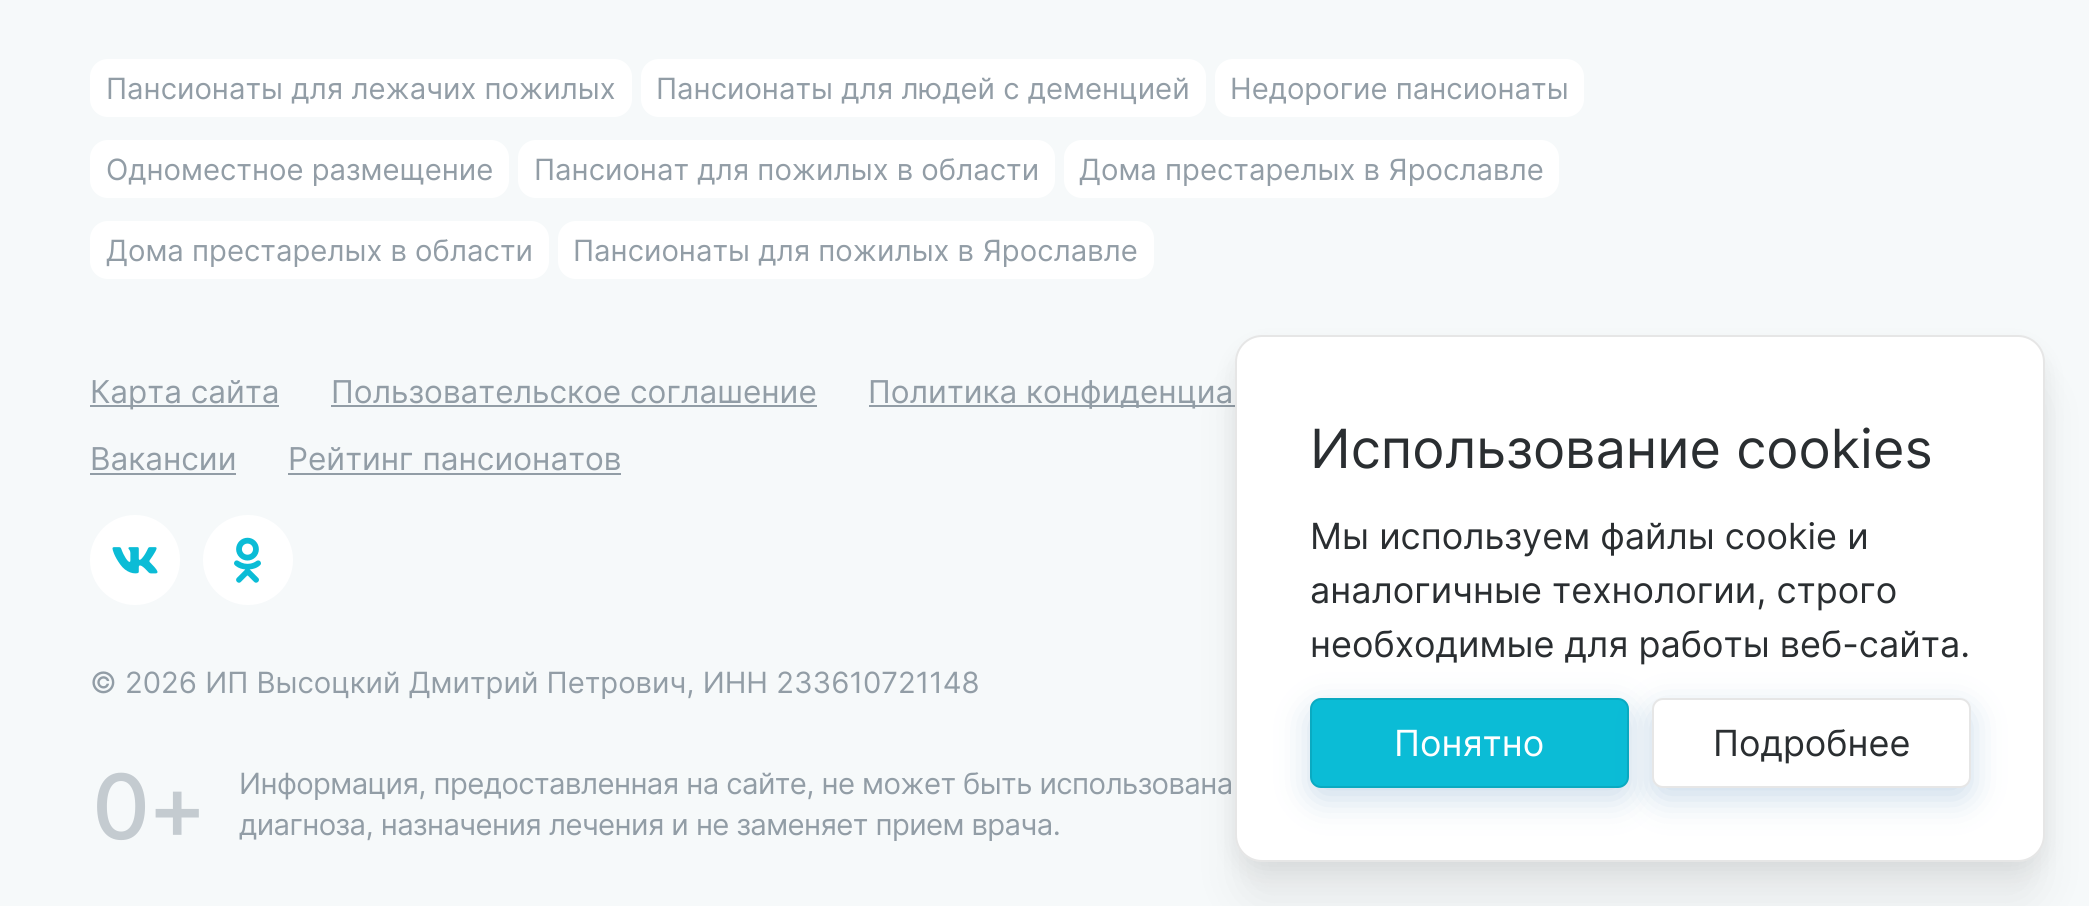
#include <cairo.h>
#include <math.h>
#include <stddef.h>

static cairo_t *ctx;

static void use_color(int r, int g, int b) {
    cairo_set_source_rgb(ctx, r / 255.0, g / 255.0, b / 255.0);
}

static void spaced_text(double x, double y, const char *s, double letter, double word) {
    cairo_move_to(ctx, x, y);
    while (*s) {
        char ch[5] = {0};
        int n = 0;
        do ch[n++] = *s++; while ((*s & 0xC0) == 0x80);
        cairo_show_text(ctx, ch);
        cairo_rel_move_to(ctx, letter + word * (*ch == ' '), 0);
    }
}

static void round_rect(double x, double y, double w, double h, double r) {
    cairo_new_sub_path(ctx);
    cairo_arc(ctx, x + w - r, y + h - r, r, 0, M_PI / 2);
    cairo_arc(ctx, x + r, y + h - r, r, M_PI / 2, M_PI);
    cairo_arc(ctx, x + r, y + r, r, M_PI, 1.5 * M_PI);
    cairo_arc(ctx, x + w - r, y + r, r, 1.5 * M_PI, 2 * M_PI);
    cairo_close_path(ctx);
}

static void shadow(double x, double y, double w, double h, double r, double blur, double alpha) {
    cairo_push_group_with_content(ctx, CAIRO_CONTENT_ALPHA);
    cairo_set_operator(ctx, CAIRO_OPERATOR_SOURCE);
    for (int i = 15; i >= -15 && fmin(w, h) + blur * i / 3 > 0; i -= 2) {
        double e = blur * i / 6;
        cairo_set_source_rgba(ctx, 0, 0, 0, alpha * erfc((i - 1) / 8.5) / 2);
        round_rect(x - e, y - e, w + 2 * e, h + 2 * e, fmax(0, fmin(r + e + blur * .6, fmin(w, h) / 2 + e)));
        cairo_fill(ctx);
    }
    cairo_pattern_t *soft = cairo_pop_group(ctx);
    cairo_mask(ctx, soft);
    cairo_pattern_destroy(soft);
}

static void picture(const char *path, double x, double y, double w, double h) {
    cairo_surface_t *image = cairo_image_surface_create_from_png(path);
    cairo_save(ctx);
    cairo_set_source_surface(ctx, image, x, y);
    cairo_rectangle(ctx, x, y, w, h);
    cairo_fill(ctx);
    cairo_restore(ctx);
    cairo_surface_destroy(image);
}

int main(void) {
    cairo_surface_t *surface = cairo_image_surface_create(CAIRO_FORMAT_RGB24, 2089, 906);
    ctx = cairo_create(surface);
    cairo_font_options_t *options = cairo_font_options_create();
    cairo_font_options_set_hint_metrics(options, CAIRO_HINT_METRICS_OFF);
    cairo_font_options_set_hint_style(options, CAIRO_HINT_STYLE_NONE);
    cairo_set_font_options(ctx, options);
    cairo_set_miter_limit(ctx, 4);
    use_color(246, 249, 250);
    cairo_paint(ctx);
    use_color(255, 255, 255);
    round_rect(90, 59, 542, 58, 18);
    cairo_fill(ctx);
    cairo_select_font_face(ctx, "Inter", CAIRO_FONT_SLANT_NORMAL, CAIRO_FONT_WEIGHT_NORMAL);
    cairo_set_font_size(ctx, 29.25);
    use_color(146, 157, 166);
    cairo_move_to(ctx, 106, 99);
    cairo_show_text(ctx, "Пансионаты для лежачих пожилых");
    use_color(255, 255, 255);
    round_rect(641, 59, 565, 58, 18);
    cairo_fill(ctx);
    use_color(146, 157, 166);
    cairo_move_to(ctx, 656, 99);
    cairo_show_text(ctx, "Пансионаты для людей с деменцией");
    use_color(255, 255, 255);
    round_rect(1215, 59, 369, 58, 18);
    cairo_fill(ctx);
    use_color(146, 157, 166);
    cairo_move_to(ctx, 1230, 99);
    cairo_show_text(ctx, "Недорогие пансионаты");
    use_color(255, 255, 255);
    round_rect(90, 140, 419, 58, 18);
    cairo_fill(ctx);
    use_color(146, 157, 166);
    cairo_move_to(ctx, 106, 180);
    cairo_show_text(ctx, "Одноместное размещение");
    use_color(255, 255, 255);
    round_rect(518, 140, 537, 58, 18);
    cairo_fill(ctx);
    use_color(146, 157, 166);
    cairo_move_to(ctx, 534, 180);
    cairo_show_text(ctx, "Пансионат для пожилых в области");
    use_color(255, 255, 255);
    round_rect(1064, 140, 495, 58, 18);
    cairo_fill(ctx);
    use_color(146, 157, 166);
    cairo_move_to(ctx, 1079, 180);
    cairo_show_text(ctx, "Дома престарелых в Ярославле");
    use_color(255, 255, 255);
    round_rect(90, 221, 459, 58, 18);
    cairo_fill(ctx);
    use_color(146, 157, 166);
    cairo_move_to(ctx, 106, 261);
    cairo_show_text(ctx, "Дома престарелых в области");
    use_color(255, 255, 255);
    round_rect(558, 221, 596, 58, 18);
    cairo_fill(ctx);
    use_color(146, 157, 166);
    cairo_move_to(ctx, 573, 261);
    cairo_show_text(ctx, "Пансионаты для пожилых в Ярославле");
    cairo_rectangle(ctx, 90, 405, 189, 2);
    cairo_fill(ctx);
    cairo_set_font_size(ctx, 31.5);
    cairo_move_to(ctx, 90, 403);
    cairo_show_text(ctx, "Карта сайта");
    cairo_move_to(ctx, 331, 403);
    cairo_show_text(ctx, "Пользовательское соглашение");
    cairo_rectangle(ctx, 331, 405, 486, 2);
    cairo_fill(ctx);
    cairo_rectangle(ctx, 869, 405, 366, 2);
    cairo_fill(ctx);
    cairo_move_to(ctx, 868, 403);
    cairo_show_text(ctx, "Политика конфиденциа");
    cairo_move_to(ctx, 90, 470);
    cairo_show_text(ctx, "Вакансии");
    cairo_rectangle(ctx, 90, 473, 146, 2);
    cairo_fill(ctx);
    cairo_move_to(ctx, 288, 470);
    cairo_show_text(ctx, "Рейтинг пансионатов");
    cairo_rectangle(ctx, 288, 473, 333, 2);
    cairo_fill(ctx);
    use_color(255, 255, 255);
    cairo_arc(ctx, 135, 560, 45, 0, 2 * M_PI);
    cairo_fill(ctx);
    picture("img1.png", 112, 547, 46, 27);
    cairo_arc(ctx, 248, 560, 45, 0, 2 * M_PI);
    cairo_fill(ctx);
    picture("img2.png", 234, 537, 27, 46);
    cairo_set_font_size(ctx, 29.25);
    use_color(146, 157, 166);
    cairo_move_to(ctx, 90, 693);
    cairo_show_text(ctx, "© 2026 ИП Высоцкий Дмитрий Петрович, ИНН 233610721148");
    cairo_select_font_face(ctx, "Inter Medium", CAIRO_FONT_SLANT_NORMAL, CAIRO_FONT_WEIGHT_NORMAL);
    cairo_set_font_size(ctx, 90);
    use_color(196, 203, 208);
    spaced_text(92, 839, "0+", -3, 0);
    cairo_select_font_face(ctx, "Inter", CAIRO_FONT_SLANT_NORMAL, CAIRO_FONT_WEIGHT_NORMAL);
    cairo_set_font_size(ctx, 29.25);
    use_color(146, 157, 166);
    spaced_text(239, 794, "Информация, предоставленная на сайте, не может быть использована", -0.58, 0);
    spaced_text(239, 835, "диагноза, назначения лечения и не заменяет прием врача.", -0.58, 0);
    use_color(0, 0, 0);
    shadow(1235, 347, 810, 526, 27, 12.5, 0.07);
    shadow(1235, 380, 810, 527, 27, 22.5, 0.06);
    use_color(255, 255, 255);
    round_rect(1235, 335, 810, 527, 27);
    cairo_fill(ctx);
    round_rect(1236, 336, 808, 525, 26);
    cairo_set_source_rgba(ctx, 0, 0, 0, 0.1);
    cairo_stroke(ctx);
    cairo_set_font_size(ctx, 54);
    use_color(42, 46, 49);
    cairo_move_to(ctx, 1310, 468);
    cairo_show_text(ctx, "Использование cookies");
    cairo_set_font_size(ctx, 36);
    cairo_move_to(ctx, 1310, 549);
    cairo_show_text(ctx, "Мы используем файлы cookie и");
    cairo_move_to(ctx, 1310, 603);
    cairo_show_text(ctx, "аналогичные технологии, строго");
    cairo_move_to(ctx, 1310, 657);
    cairo_show_text(ctx, "необходимые для работы веб-сайта.");
    use_color(0, 83, 151);
    shadow(1310, 709, 319, 90, 11, 17, 0.2);
    use_color(11, 188, 214);
    round_rect(1310, 698, 319, 90, 11);
    cairo_fill(ctx);
    round_rect(1311, 699, 317, 88, 10);
    cairo_set_source_rgba(ctx, 0, 0, 0, 0.1);
    cairo_stroke(ctx);
    use_color(255, 255, 255);
    cairo_move_to(ctx, 1394, 756);
    cairo_show_text(ctx, "Понятно");
    use_color(0, 83, 151);
    shadow(1652, 709, 319, 90, 11, 17, 0.2);
    use_color(255, 255, 255);
    round_rect(1652, 698, 319, 90, 11);
    cairo_fill(ctx);
    round_rect(1653, 699, 317, 88, 10);
    cairo_set_source_rgba(ctx, 0, 0, 0, 0.1);
    cairo_stroke(ctx);
    use_color(42, 46, 49);
    cairo_move_to(ctx, 1713, 756);
    cairo_show_text(ctx, "Подробнее");
    cairo_surface_write_to_png(surface, "result.png");
    cairo_font_options_destroy(options);
    cairo_destroy(ctx);
    cairo_surface_destroy(surface);
    return 0;
}
